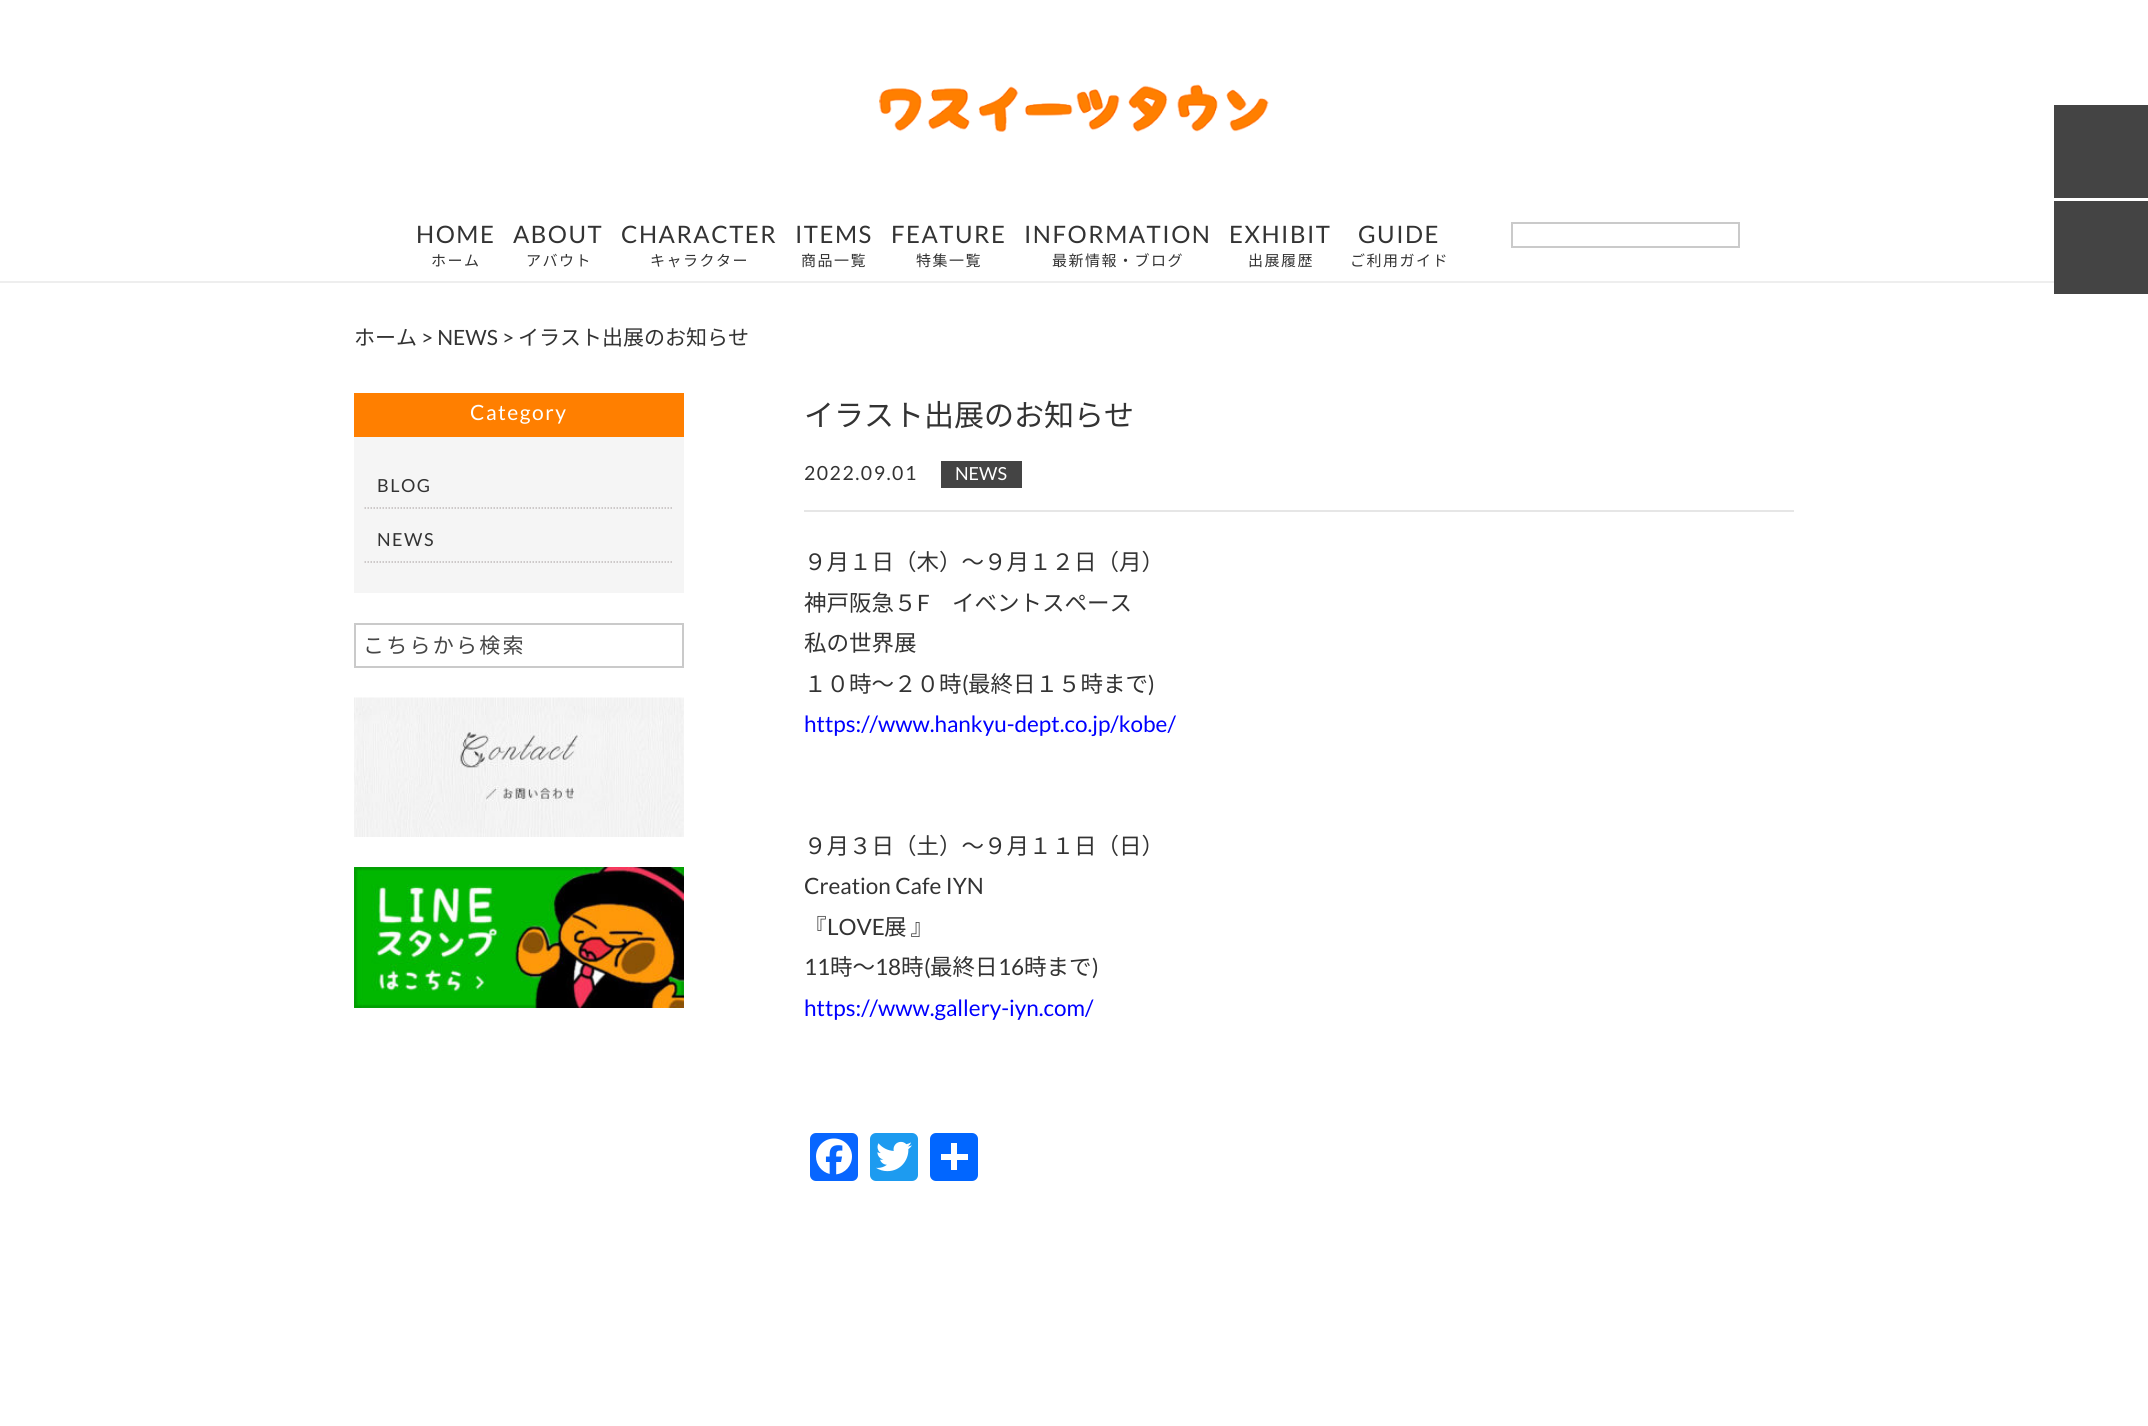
#include <cairo.h>
#include <math.h>
#include <stddef.h>

static cairo_t *ctx;

static void use_color(int r, int g, int b) {
    cairo_set_source_rgb(ctx, r / 255.0, g / 255.0, b / 255.0);
}

static void spaced_text(double x, double y, const char *s, double letter, double word) {
    cairo_move_to(ctx, x, y);
    while (*s) {
        char ch[5] = {0};
        int n = 0;
        do ch[n++] = *s++; while ((*s & 0xC0) == 0x80);
        cairo_show_text(ctx, ch);
        cairo_rel_move_to(ctx, letter + word * (*ch == ' '), 0);
    }
}

static void round_rect(double x, double y, double w, double h, double r) {
    cairo_new_sub_path(ctx);
    cairo_arc(ctx, x + w - r, y + h - r, r, 0, M_PI / 2);
    cairo_arc(ctx, x + r, y + h - r, r, M_PI / 2, M_PI);
    cairo_arc(ctx, x + r, y + r, r, M_PI, 1.5 * M_PI);
    cairo_arc(ctx, x + w - r, y + r, r, 1.5 * M_PI, 2 * M_PI);
    cairo_close_path(ctx);
}

static void picture(const char *path, double x, double y, double w, double h) {
    cairo_surface_t *image = cairo_image_surface_create_from_png(path);
    cairo_save(ctx);
    cairo_set_source_surface(ctx, image, x, y);
    cairo_rectangle(ctx, x, y, w, h);
    cairo_fill(ctx);
    cairo_restore(ctx);
    cairo_surface_destroy(image);
}

int main(void) {
    cairo_surface_t *surface = cairo_image_surface_create(CAIRO_FORMAT_RGB24, 2148, 1426);
    ctx = cairo_create(surface);
    cairo_font_options_t *options = cairo_font_options_create();
    cairo_font_options_set_hint_metrics(options, CAIRO_HINT_METRICS_OFF);
    cairo_font_options_set_hint_style(options, CAIRO_HINT_STYLE_NONE);
    cairo_set_font_options(ctx, options);
    cairo_set_miter_limit(ctx, 4);
    use_color(255, 255, 255);
    cairo_paint(ctx);
    use_color(238, 238, 238);
    cairo_rectangle(ctx, 0, 281, 2054, 2);
    cairo_fill(ctx);
    picture("img1.png", 879, 84, 390, 48);
    cairo_select_font_face(ctx, "Lato", CAIRO_FONT_SLANT_NORMAL, CAIRO_FONT_WEIGHT_NORMAL);
    cairo_set_font_size(ctx, 24);
    use_color(51, 51, 51);
    spaced_text(416, 243, "HOME", 1.5, 0);
    cairo_select_font_face(ctx, "Noto Sans JP", CAIRO_FONT_SLANT_NORMAL, CAIRO_FONT_WEIGHT_NORMAL);
    cairo_set_font_size(ctx, 15);
    spaced_text(431, 266, "ホーム", 1.5, 0);
    cairo_select_font_face(ctx, "Lato", CAIRO_FONT_SLANT_NORMAL, CAIRO_FONT_WEIGHT_NORMAL);
    cairo_set_font_size(ctx, 24);
    spaced_text(513, 243, "ABOUT", 1.5, 0);
    cairo_select_font_face(ctx, "Noto Sans JP", CAIRO_FONT_SLANT_NORMAL, CAIRO_FONT_WEIGHT_NORMAL);
    cairo_set_font_size(ctx, 15);
    spaced_text(526, 266, "アバウト", 1.5, 0);
    cairo_select_font_face(ctx, "Lato", CAIRO_FONT_SLANT_NORMAL, CAIRO_FONT_WEIGHT_NORMAL);
    cairo_set_font_size(ctx, 24);
    spaced_text(621, 243, "CHARACTER", 1.5, 0);
    cairo_select_font_face(ctx, "Noto Sans JP", CAIRO_FONT_SLANT_NORMAL, CAIRO_FONT_WEIGHT_NORMAL);
    cairo_set_font_size(ctx, 15);
    spaced_text(650, 266, "キャラクター", 1.5, 0);
    cairo_select_font_face(ctx, "Lato", CAIRO_FONT_SLANT_NORMAL, CAIRO_FONT_WEIGHT_NORMAL);
    cairo_set_font_size(ctx, 24);
    spaced_text(795, 243, "ITEMS", 1.5, 0);
    cairo_select_font_face(ctx, "Noto Sans JP", CAIRO_FONT_SLANT_NORMAL, CAIRO_FONT_WEIGHT_NORMAL);
    cairo_set_font_size(ctx, 15);
    spaced_text(801, 266, "商品一覧", 1.5, 0);
    cairo_select_font_face(ctx, "Lato", CAIRO_FONT_SLANT_NORMAL, CAIRO_FONT_WEIGHT_NORMAL);
    cairo_set_font_size(ctx, 24);
    spaced_text(891, 243, "FEATURE", 1.5, 0);
    cairo_select_font_face(ctx, "Noto Sans JP", CAIRO_FONT_SLANT_NORMAL, CAIRO_FONT_WEIGHT_NORMAL);
    cairo_set_font_size(ctx, 15);
    spaced_text(916, 266, "特集一覧", 1.5, 0);
    cairo_select_font_face(ctx, "Lato", CAIRO_FONT_SLANT_NORMAL, CAIRO_FONT_WEIGHT_NORMAL);
    cairo_set_font_size(ctx, 24);
    spaced_text(1024, 243, "INFORMATION", 1.5, 0);
    cairo_select_font_face(ctx, "Noto Sans JP", CAIRO_FONT_SLANT_NORMAL, CAIRO_FONT_WEIGHT_NORMAL);
    cairo_set_font_size(ctx, 15);
    spaced_text(1052, 266, "最新情報・ブログ", 1.5, 0);
    cairo_select_font_face(ctx, "Lato", CAIRO_FONT_SLANT_NORMAL, CAIRO_FONT_WEIGHT_NORMAL);
    cairo_set_font_size(ctx, 24);
    spaced_text(1229, 243, "EXHIBIT", 1.5, 0);
    cairo_select_font_face(ctx, "Noto Sans JP", CAIRO_FONT_SLANT_NORMAL, CAIRO_FONT_WEIGHT_NORMAL);
    cairo_set_font_size(ctx, 15);
    spaced_text(1248, 266, "出展履歴", 1.5, 0);
    cairo_select_font_face(ctx, "Lato", CAIRO_FONT_SLANT_NORMAL, CAIRO_FONT_WEIGHT_NORMAL);
    cairo_set_font_size(ctx, 24);
    spaced_text(1358, 243, "GUIDE", 1.5, 0);
    cairo_select_font_face(ctx, "Noto Sans JP", CAIRO_FONT_SLANT_NORMAL, CAIRO_FONT_WEIGHT_NORMAL);
    cairo_set_font_size(ctx, 15);
    spaced_text(1350, 266, "ご利用ガイド", 1.5, 0);
    cairo_rectangle(ctx, 1512, 223, 227, 24);
    use_color(202, 202, 202);
    cairo_stroke(ctx);
    use_color(68, 68, 68);
    cairo_rectangle(ctx, 2054, 105, 94, 93);
    cairo_fill(ctx);
    cairo_rectangle(ctx, 2054, 201, 94, 93);
    cairo_fill(ctx);
    cairo_set_font_size(ctx, 21);
    use_color(51, 51, 51);
    cairo_move_to(ctx, 354, 345);
    cairo_show_text(ctx, "ホーム");
    cairo_select_font_face(ctx, "Lato", CAIRO_FONT_SLANT_NORMAL, CAIRO_FONT_WEIGHT_NORMAL);
    cairo_move_to(ctx, 421, 345);
    cairo_show_text(ctx, "> NEWS >");
    cairo_select_font_face(ctx, "Noto Sans JP", CAIRO_FONT_SLANT_NORMAL, CAIRO_FONT_WEIGHT_NORMAL);
    cairo_move_to(ctx, 518, 345);
    cairo_show_text(ctx, "イラスト出展のお知らせ");
    use_color(245, 245, 245);
    cairo_rectangle(ctx, 354, 437, 330, 156);
    cairo_fill(ctx);
    use_color(255, 127, 0);
    cairo_rectangle(ctx, 354, 393, 330, 44);
    cairo_fill(ctx);
    cairo_select_font_face(ctx, "Lato", CAIRO_FONT_SLANT_NORMAL, CAIRO_FONT_WEIGHT_NORMAL);
    use_color(255, 255, 255);
    spaced_text(470, 420, "Category", 1.5, 0);
    cairo_new_path(ctx);
    cairo_move_to(ctx, 364.5, 508);
    cairo_line_to(ctx, 673.5, 508);
    use_color(191, 186, 186);
    cairo_set_line_width(ctx, 1.5);
    cairo_set_dash(ctx, (double[]){1.5, 1.5}, 2, 0);
    cairo_stroke(ctx);
    cairo_set_font_size(ctx, 18);
    use_color(51, 51, 51);
    spaced_text(377, 492, "BLOG", 1.5, 0);
    cairo_new_path(ctx);
    cairo_move_to(ctx, 364.5, 562);
    cairo_line_to(ctx, 673.5, 562);
    use_color(191, 186, 186);
    cairo_stroke(ctx);
    use_color(51, 51, 51);
    spaced_text(377, 546, "NEWS", 1.5, 0);
    cairo_rectangle(ctx, 355, 624, 328, 43);
    use_color(202, 202, 202);
    cairo_set_line_width(ctx, 2);
    cairo_set_dash(ctx, NULL, 0, 0);
    cairo_stroke(ctx);
    cairo_select_font_face(ctx, "Noto Sans JP", CAIRO_FONT_SLANT_NORMAL, CAIRO_FONT_WEIGHT_NORMAL);
    cairo_set_font_size(ctx, 21);
    use_color(70, 70, 70);
    spaced_text(363, 653, "こちらから検索", 2.25, 0);
    picture("img2.png", 354, 697, 330, 140);
    picture("img3.png", 354, 867, 330, 141);
    use_color(230, 230, 230);
    cairo_rectangle(ctx, 804, 510, 990, 2);
    cairo_fill(ctx);
    cairo_set_font_size(ctx, 30);
    use_color(51, 51, 51);
    cairo_move_to(ctx, 804, 426);
    cairo_show_text(ctx, "イラスト出展のお知らせ");
    cairo_select_font_face(ctx, "Lato", CAIRO_FONT_SLANT_NORMAL, CAIRO_FONT_WEIGHT_NORMAL);
    cairo_set_font_size(ctx, 19.5);
    spaced_text(804, 480, "2022.09.01", 1.5, 0);
    use_color(68, 68, 68);
    cairo_rectangle(ctx, 941, 461, 81, 27);
    cairo_fill(ctx);
    cairo_set_font_size(ctx, 18);
    use_color(255, 255, 255);
    cairo_move_to(ctx, 955, 480);
    cairo_show_text(ctx, "NEWS");
    cairo_select_font_face(ctx, "Noto Sans JP", CAIRO_FONT_SLANT_NORMAL, CAIRO_FONT_WEIGHT_NORMAL);
    cairo_set_font_size(ctx, 22.5);
    use_color(51, 51, 51);
    cairo_move_to(ctx, 804, 570);
    cairo_show_text(ctx, "９月１日（木）～９月１２日（月）");
    cairo_move_to(ctx, 804, 611);
    cairo_show_text(ctx, "神戸阪急５");
    cairo_select_font_face(ctx, "Lato", CAIRO_FONT_SLANT_NORMAL, CAIRO_FONT_WEIGHT_NORMAL);
    cairo_move_to(ctx, 917, 611);
    cairo_show_text(ctx, "F");
    cairo_select_font_face(ctx, "Noto Sans JP", CAIRO_FONT_SLANT_NORMAL, CAIRO_FONT_WEIGHT_NORMAL);
    cairo_move_to(ctx, 952, 611);
    cairo_show_text(ctx, "イベントスペース");
    cairo_move_to(ctx, 804, 651);
    cairo_show_text(ctx, "私の世界展");
    cairo_move_to(ctx, 804, 692);
    cairo_show_text(ctx, "１０時〜２０時");
    cairo_select_font_face(ctx, "Lato", CAIRO_FONT_SLANT_NORMAL, CAIRO_FONT_WEIGHT_NORMAL);
    cairo_move_to(ctx, 962, 692);
    cairo_show_text(ctx, "(");
    cairo_select_font_face(ctx, "Noto Sans JP", CAIRO_FONT_SLANT_NORMAL, CAIRO_FONT_WEIGHT_NORMAL);
    cairo_move_to(ctx, 968, 692);
    cairo_show_text(ctx, "最終日１５時まで");
    cairo_select_font_face(ctx, "Lato", CAIRO_FONT_SLANT_NORMAL, CAIRO_FONT_WEIGHT_NORMAL);
    cairo_move_to(ctx, 1148, 692);
    cairo_show_text(ctx, ")");
    use_color(0, 0, 255);
    cairo_move_to(ctx, 804, 732);
    cairo_show_text(ctx, "https://www.hankyu-dept.co.jp/kobe/");
    cairo_select_font_face(ctx, "Noto Sans JP", CAIRO_FONT_SLANT_NORMAL, CAIRO_FONT_WEIGHT_NORMAL);
    use_color(51, 51, 51);
    cairo_move_to(ctx, 804, 854);
    cairo_show_text(ctx, "９月３日（土）～９月１１日（日）");
    cairo_select_font_face(ctx, "Lato", CAIRO_FONT_SLANT_NORMAL, CAIRO_FONT_WEIGHT_NORMAL);
    cairo_move_to(ctx, 804, 894);
    cairo_show_text(ctx, "Creation Cafe IYN");
    cairo_select_font_face(ctx, "Noto Sans JP", CAIRO_FONT_SLANT_NORMAL, CAIRO_FONT_WEIGHT_NORMAL);
    cairo_move_to(ctx, 804, 935);
    cairo_show_text(ctx, "『");
    cairo_select_font_face(ctx, "Lato", CAIRO_FONT_SLANT_NORMAL, CAIRO_FONT_WEIGHT_NORMAL);
    cairo_move_to(ctx, 827, 935);
    cairo_show_text(ctx, "LOVE");
    cairo_select_font_face(ctx, "Noto Sans JP", CAIRO_FONT_SLANT_NORMAL, CAIRO_FONT_WEIGHT_NORMAL);
    spaced_text(884, 935, "展 』", 0, -1);
    cairo_select_font_face(ctx, "Lato", CAIRO_FONT_SLANT_NORMAL, CAIRO_FONT_WEIGHT_NORMAL);
    cairo_move_to(ctx, 804, 975);
    cairo_show_text(ctx, "11");
    cairo_select_font_face(ctx, "Noto Sans JP", CAIRO_FONT_SLANT_NORMAL, CAIRO_FONT_WEIGHT_NORMAL);
    cairo_move_to(ctx, 830, 975);
    cairo_show_text(ctx, "時〜");
    cairo_select_font_face(ctx, "Lato", CAIRO_FONT_SLANT_NORMAL, CAIRO_FONT_WEIGHT_NORMAL);
    cairo_move_to(ctx, 875, 975);
    cairo_show_text(ctx, "18");
    cairo_select_font_face(ctx, "Noto Sans JP", CAIRO_FONT_SLANT_NORMAL, CAIRO_FONT_WEIGHT_NORMAL);
    cairo_move_to(ctx, 901, 975);
    cairo_show_text(ctx, "時");
    cairo_select_font_face(ctx, "Lato", CAIRO_FONT_SLANT_NORMAL, CAIRO_FONT_WEIGHT_NORMAL);
    cairo_move_to(ctx, 924, 975);
    cairo_show_text(ctx, "(");
    cairo_select_font_face(ctx, "Noto Sans JP", CAIRO_FONT_SLANT_NORMAL, CAIRO_FONT_WEIGHT_NORMAL);
    cairo_move_to(ctx, 930, 975);
    cairo_show_text(ctx, "最終日");
    cairo_select_font_face(ctx, "Lato", CAIRO_FONT_SLANT_NORMAL, CAIRO_FONT_WEIGHT_NORMAL);
    cairo_move_to(ctx, 998, 975);
    cairo_show_text(ctx, "16");
    cairo_select_font_face(ctx, "Noto Sans JP", CAIRO_FONT_SLANT_NORMAL, CAIRO_FONT_WEIGHT_NORMAL);
    cairo_move_to(ctx, 1024, 975);
    cairo_show_text(ctx, "時まで");
    cairo_select_font_face(ctx, "Lato", CAIRO_FONT_SLANT_NORMAL, CAIRO_FONT_WEIGHT_NORMAL);
    cairo_move_to(ctx, 1092, 975);
    cairo_show_text(ctx, ")");
    use_color(0, 0, 255);
    cairo_move_to(ctx, 804, 1016);
    cairo_show_text(ctx, "https://www.gallery-iyn.com/");
    use_color(8, 102, 255);
    round_rect(810, 1133, 48, 48, 6);
    cairo_fill(ctx);
    picture("img4.png", 816, 1138, 36, 37);
    use_color(29, 155, 240);
    round_rect(870, 1133, 48, 48, 6);
    cairo_fill(ctx);
    picture("img5.png", 876, 1141, 36, 31);
    use_color(1, 102, 255);
    round_rect(930, 1133, 48, 48, 6);
    cairo_fill(ctx);
    use_color(255, 255, 255);
    cairo_rectangle(ctx, 951, 1143, 6, 27);
    cairo_fill(ctx);
    cairo_rectangle(ctx, 941, 1154, 27, 6);
    cairo_fill(ctx);
    cairo_surface_write_to_png(surface, "result.png");
    cairo_font_options_destroy(options);
    cairo_destroy(ctx);
    cairo_surface_destroy(surface);
    return 0;
}
